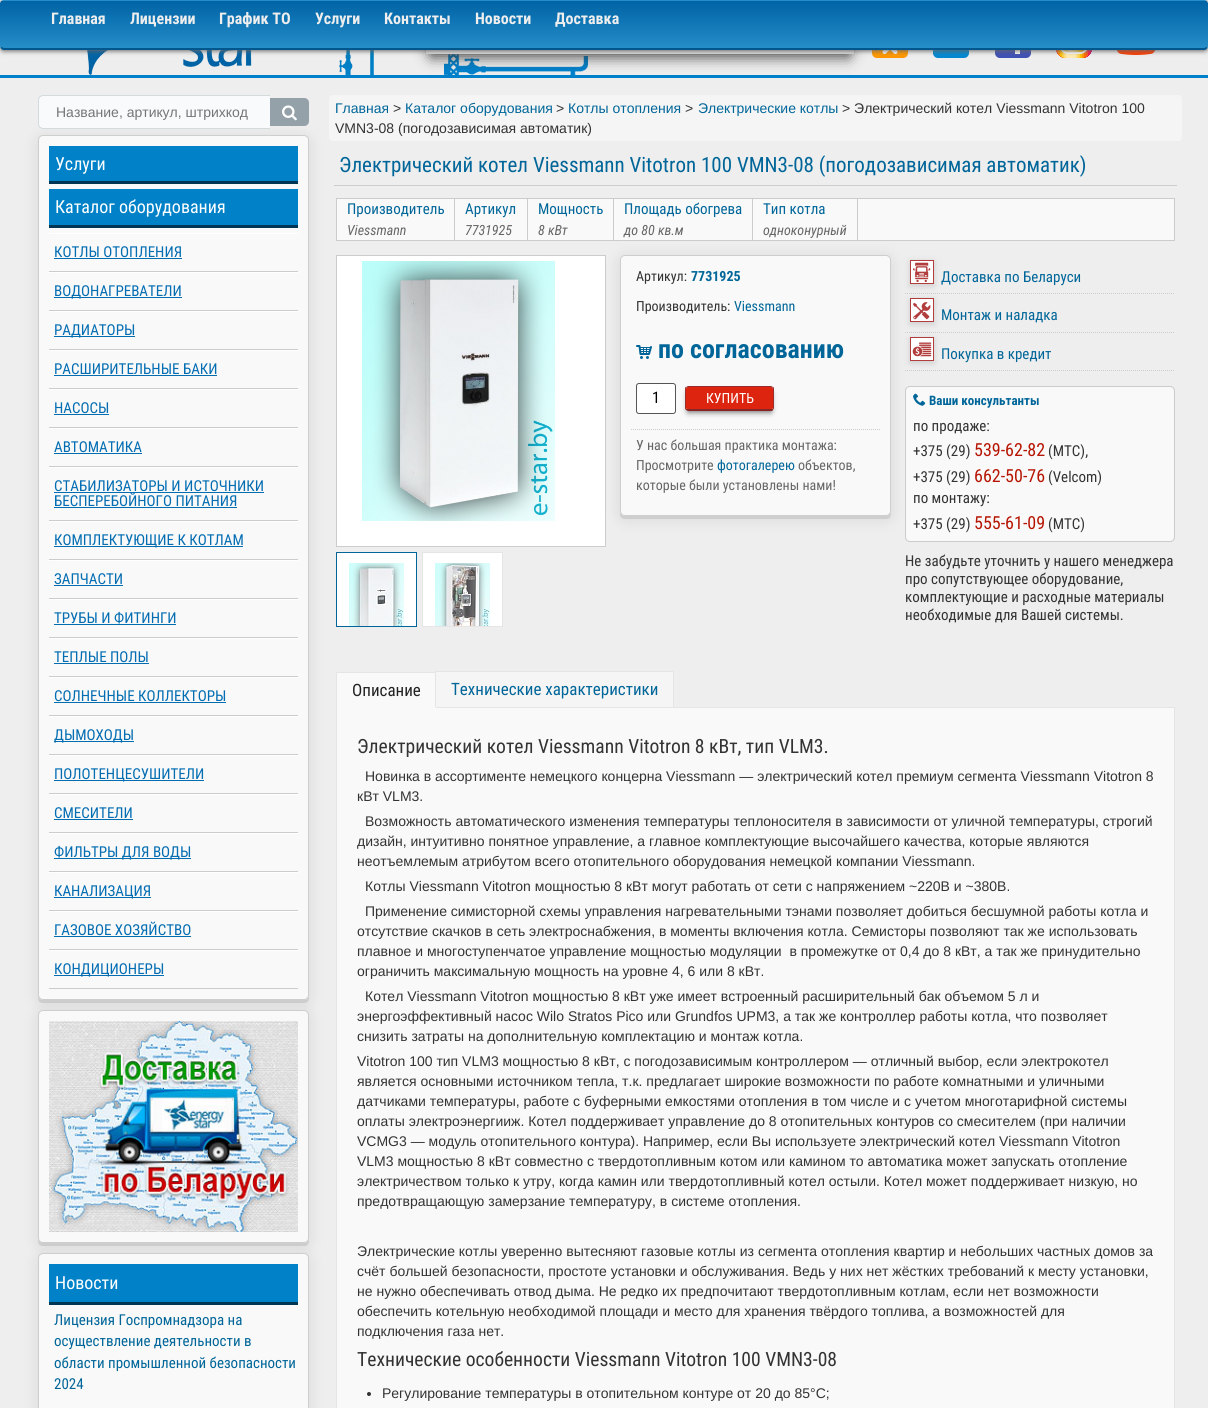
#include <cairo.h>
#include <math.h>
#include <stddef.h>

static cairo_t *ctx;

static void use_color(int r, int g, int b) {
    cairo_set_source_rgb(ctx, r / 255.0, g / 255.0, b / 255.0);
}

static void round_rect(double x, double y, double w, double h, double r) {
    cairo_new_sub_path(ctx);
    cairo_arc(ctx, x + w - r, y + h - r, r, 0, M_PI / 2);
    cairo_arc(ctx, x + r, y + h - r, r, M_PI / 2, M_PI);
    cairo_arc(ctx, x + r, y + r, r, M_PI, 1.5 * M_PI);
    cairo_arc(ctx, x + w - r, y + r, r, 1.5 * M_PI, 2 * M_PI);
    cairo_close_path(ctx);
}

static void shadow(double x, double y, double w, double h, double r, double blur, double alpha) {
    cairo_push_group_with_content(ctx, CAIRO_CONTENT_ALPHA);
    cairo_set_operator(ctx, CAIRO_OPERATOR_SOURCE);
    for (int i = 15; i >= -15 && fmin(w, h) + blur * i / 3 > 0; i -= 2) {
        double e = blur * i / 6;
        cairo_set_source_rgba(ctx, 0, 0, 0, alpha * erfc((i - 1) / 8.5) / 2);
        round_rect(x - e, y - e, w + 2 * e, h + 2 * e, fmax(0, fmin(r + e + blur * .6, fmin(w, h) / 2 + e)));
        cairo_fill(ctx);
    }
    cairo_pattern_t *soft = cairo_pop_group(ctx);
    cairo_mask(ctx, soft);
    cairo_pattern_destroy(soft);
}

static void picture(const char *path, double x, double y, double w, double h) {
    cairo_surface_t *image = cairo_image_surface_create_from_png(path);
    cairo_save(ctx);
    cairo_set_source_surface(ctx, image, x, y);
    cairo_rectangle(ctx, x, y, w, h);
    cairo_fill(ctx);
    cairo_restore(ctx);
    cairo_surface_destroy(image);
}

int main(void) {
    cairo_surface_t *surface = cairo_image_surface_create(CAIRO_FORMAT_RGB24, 1208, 1408);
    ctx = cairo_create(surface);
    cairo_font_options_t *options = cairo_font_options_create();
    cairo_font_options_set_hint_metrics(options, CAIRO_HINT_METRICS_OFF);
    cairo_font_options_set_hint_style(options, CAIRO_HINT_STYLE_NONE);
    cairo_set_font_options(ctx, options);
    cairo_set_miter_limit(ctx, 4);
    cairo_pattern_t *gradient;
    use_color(238, 238, 238);
    cairo_paint(ctx);
    use_color(0, 128, 201);
    cairo_rectangle(ctx, 0, 75, 1208, 3);
    cairo_fill(ctx);
    picture("img1.png", 87, 50, 287, 25);
    picture("img2.png", 444, 54, 144, 21);
    use_color(51, 51, 51);
    shadow(431, -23, 418, 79, 0, 7.5, 1);
    cairo_rectangle(ctx, 428, -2, 424, 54);
    use_color(221, 221, 221);
    cairo_set_line_width(ctx, 4);
    cairo_stroke(ctx);
    picture("img3.png", 872, 50, 36, 8);
    picture("img4.png", 933, 50, 36, 8);
    picture("img5.png", 995, 50, 36, 8);
    picture("img6.png", 1056, 50, 36, 8);
    picture("img7.png", 1116, 50, 40, 5);
    use_color(102, 102, 102);
    shadow(0, 1, 1208, 50, 4, 2.5, 1);
    cairo_save(ctx);
    round_rect(0, 0, 1208, 50, 4);
    cairo_clip(ctx);
    gradient = cairo_pattern_create_linear(604, -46, 604, 1);
    cairo_pattern_add_color_stop_rgba(gradient, 0, 0, 0.388, 0.647, 1);
    cairo_pattern_add_color_stop_rgba(gradient, 1, 0.145, 0.553, 0.784, 1);
    cairo_set_source(ctx, gradient);
    cairo_pattern_destroy(gradient);
    cairo_rectangle(ctx, 0, 0, 1208, 1);
    cairo_fill(ctx);
    gradient = cairo_pattern_create_linear(604, 1, 604, 48);
    cairo_pattern_add_color_stop_rgba(gradient, 0, 0, 0.388, 0.647, 1);
    cairo_pattern_add_color_stop_rgba(gradient, 1, 0.145, 0.553, 0.784, 1);
    cairo_set_source(ctx, gradient);
    cairo_pattern_destroy(gradient);
    cairo_rectangle(ctx, 0, 1, 1208, 47);
    cairo_fill(ctx);
    gradient = cairo_pattern_create_linear(604, 48, 604, 95);
    cairo_pattern_add_color_stop_rgba(gradient, 0, 0, 0.388, 0.647, 1);
    cairo_pattern_add_color_stop_rgba(gradient, 1, 0.145, 0.553, 0.784, 1);
    cairo_set_source(ctx, gradient);
    cairo_pattern_destroy(gradient);
    cairo_rectangle(ctx, 0, 48, 1208, 2);
    cairo_fill(ctx);
    cairo_restore(ctx);
    use_color(0, 87, 142);
    cairo_new_path(ctx);
    cairo_move_to(ctx, 4, 50);
    cairo_line_to(ctx, 1204, 50);
    cairo_curve_to(ctx, 1205, 50, 1206, 49, 1207, 48);
    cairo_line_to(ctx, 1207, 47);
    cairo_line_to(ctx, 1204, 48);
    cairo_line_to(ctx, 4, 48);
    cairo_line_to(ctx, 1, 47);
    cairo_line_to(ctx, 1, 48);
    cairo_curve_to(ctx, 2, 49, 3, 50, 4, 50);
    cairo_close_path(ctx);
    cairo_fill(ctx);
    cairo_select_font_face(ctx, "Roboto Condensed", CAIRO_FONT_SLANT_NORMAL, CAIRO_FONT_WEIGHT_BOLD);
    cairo_set_font_size(ctx, 16);
    use_color(238, 238, 238);
    cairo_move_to(ctx, 51, 24);
    cairo_show_text(ctx, "Главная");
    cairo_move_to(ctx, 130, 24);
    cairo_show_text(ctx, "Лицензии");
    cairo_move_to(ctx, 219, 24);
    cairo_show_text(ctx, "График ТО");
    cairo_move_to(ctx, 315, 24);
    cairo_show_text(ctx, "Услуги");
    cairo_move_to(ctx, 384, 24);
    cairo_show_text(ctx, "Контакты");
    cairo_move_to(ctx, 475, 24);
    cairo_show_text(ctx, "Новости");
    cairo_move_to(ctx, 555, 24);
    cairo_show_text(ctx, "Доставка");
    use_color(0, 0, 0);
    shadow(38, 138, 271, 865, 5, 7.5, 0.1);
    use_color(248, 250, 252);
    cairo_new_path(ctx);
    cairo_move_to(ctx, 43, 95);
    cairo_line_to(ctx, 270, 95);
    cairo_line_to(ctx, 270, 129);
    cairo_line_to(ctx, 43, 129);
    cairo_curve_to(ctx, 40, 129, 38, 127, 38, 124);
    cairo_line_to(ctx, 38, 100);
    cairo_curve_to(ctx, 38, 97, 40, 95, 43, 95);
    cairo_close_path(ctx);
    cairo_fill(ctx);
    use_color(213, 218, 220);
    cairo_set_fill_rule(ctx, CAIRO_FILL_RULE_EVEN_ODD);
    cairo_new_path(ctx);
    cairo_move_to(ctx, 43, 95);
    cairo_line_to(ctx, 270, 95);
    cairo_line_to(ctx, 270, 129);
    cairo_line_to(ctx, 43, 129);
    cairo_curve_to(ctx, 40, 129, 38, 127, 38, 124);
    cairo_line_to(ctx, 38, 100);
    cairo_curve_to(ctx, 38, 97, 40, 95, 43, 95);
    cairo_close_path(ctx);
    cairo_move_to(ctx, 43, 96);
    cairo_line_to(ctx, 270, 96);
    cairo_line_to(ctx, 270, 128);
    cairo_line_to(ctx, 43, 128);
    cairo_curve_to(ctx, 41, 128, 39, 126, 39, 124);
    cairo_line_to(ctx, 39, 100);
    cairo_curve_to(ctx, 39, 98, 41, 96, 43, 96);
    cairo_close_path(ctx);
    cairo_fill(ctx);
    cairo_select_font_face(ctx, "Liberation Sans", CAIRO_FONT_SLANT_NORMAL, CAIRO_FONT_WEIGHT_NORMAL);
    cairo_set_font_size(ctx, 14);
    use_color(117, 117, 117);
    cairo_move_to(ctx, 56, 117);
    cairo_show_text(ctx, "Название, артикул, штрихкод");
    use_color(149, 161, 168);
    cairo_new_path(ctx);
    cairo_move_to(ctx, 270, 98);
    cairo_line_to(ctx, 304, 98);
    cairo_curve_to(ctx, 307, 98, 309, 100, 309, 103);
    cairo_line_to(ctx, 309, 121);
    cairo_curve_to(ctx, 309, 124, 307, 126, 304, 126);
    cairo_line_to(ctx, 270, 126);
    cairo_close_path(ctx);
    cairo_fill(ctx);
    picture("img8.png", 282, 105, 15, 16);
    use_color(206, 206, 206);
    cairo_set_fill_rule(ctx, CAIRO_FILL_RULE_WINDING);
    cairo_new_path(ctx);
    cairo_move_to(ctx, 38, 995);
    cairo_line_to(ctx, 38, 998);
    cairo_curve_to(ctx, 38, 1001, 40, 1003, 43, 1003);
    cairo_line_to(ctx, 304, 1003);
    cairo_curve_to(ctx, 307, 1003, 309, 1001, 309, 998);
    cairo_line_to(ctx, 309, 995);
    cairo_curve_to(ctx, 309, 998, 307, 1000, 304, 1000);
    cairo_line_to(ctx, 43, 1000);
    cairo_curve_to(ctx, 40, 1000, 38, 998, 38, 995);
    cairo_close_path(ctx);
    cairo_fill(ctx);
    use_color(249, 249, 249);
    round_rect(38.5, 135.5, 270, 864, 4.5);
    cairo_fill_preserve(ctx);
    use_color(206, 206, 206);
    cairo_set_line_width(ctx, 1);
    cairo_stroke(ctx);
    use_color(1, 130, 200);
    cairo_rectangle(ctx, 49, 146, 249, 35);
    cairo_fill(ctx);
    use_color(0, 54, 84);
    cairo_rectangle(ctx, 49, 181, 249, 3);
    cairo_fill(ctx);
    cairo_select_font_face(ctx, "Roboto Condensed", CAIRO_FONT_SLANT_NORMAL, CAIRO_FONT_WEIGHT_NORMAL);
    cairo_set_font_size(ctx, 18);
    use_color(255, 255, 255);
    cairo_move_to(ctx, 55, 170);
    cairo_show_text(ctx, "Услуги");
    use_color(1, 130, 200);
    cairo_rectangle(ctx, 49, 189, 249, 36);
    cairo_fill(ctx);
    use_color(0, 54, 84);
    cairo_rectangle(ctx, 49, 225, 249, 3);
    cairo_fill(ctx);
    use_color(255, 255, 255);
    cairo_move_to(ctx, 55, 213);
    cairo_show_text(ctx, "Каталог оборудования");
    cairo_rectangle(ctx, 49, 233, 249, 1);
    cairo_fill(ctx);
    use_color(204, 204, 204);
    cairo_rectangle(ctx, 49, 271, 249, 1);
    cairo_fill(ctx);
    cairo_set_font_size(ctx, 15);
    use_color(3, 109, 178);
    cairo_move_to(ctx, 54, 257);
    cairo_show_text(ctx, "КОТЛЫ ОТОПЛЕНИЯ");
    cairo_rectangle(ctx, 54, 258, 128, 1);
    cairo_fill(ctx);
    use_color(255, 255, 255);
    cairo_rectangle(ctx, 49, 272, 249, 1);
    cairo_fill(ctx);
    use_color(204, 204, 204);
    cairo_rectangle(ctx, 49, 310, 249, 1);
    cairo_fill(ctx);
    use_color(3, 109, 178);
    cairo_rectangle(ctx, 54, 297, 128, 1);
    cairo_fill(ctx);
    cairo_move_to(ctx, 54, 296);
    cairo_show_text(ctx, "ВОДОНАГРЕВАТЕЛИ");
    use_color(255, 255, 255);
    cairo_rectangle(ctx, 49, 311, 249, 1);
    cairo_fill(ctx);
    use_color(204, 204, 204);
    cairo_rectangle(ctx, 49, 349, 249, 1);
    cairo_fill(ctx);
    use_color(3, 109, 178);
    cairo_rectangle(ctx, 54, 336, 81, 1);
    cairo_fill(ctx);
    cairo_move_to(ctx, 54, 335);
    cairo_show_text(ctx, "РАДИАТОРЫ");
    use_color(255, 255, 255);
    cairo_rectangle(ctx, 49, 350, 249, 1);
    cairo_fill(ctx);
    use_color(204, 204, 204);
    cairo_rectangle(ctx, 49, 388, 249, 1);
    cairo_fill(ctx);
    use_color(3, 109, 178);
    cairo_move_to(ctx, 54, 374);
    cairo_show_text(ctx, "РАСШИРИТЕЛЬНЫЕ БАКИ");
    cairo_rectangle(ctx, 54, 375, 163, 1);
    cairo_fill(ctx);
    use_color(255, 255, 255);
    cairo_rectangle(ctx, 49, 389, 249, 1);
    cairo_fill(ctx);
    use_color(204, 204, 204);
    cairo_rectangle(ctx, 49, 427, 249, 1);
    cairo_fill(ctx);
    use_color(3, 109, 178);
    cairo_move_to(ctx, 54, 413);
    cairo_show_text(ctx, "НАСОСЫ");
    cairo_rectangle(ctx, 54, 414, 55, 1);
    cairo_fill(ctx);
    use_color(255, 255, 255);
    cairo_rectangle(ctx, 49, 428, 249, 1);
    cairo_fill(ctx);
    use_color(204, 204, 204);
    cairo_rectangle(ctx, 49, 466, 249, 1);
    cairo_fill(ctx);
    use_color(3, 109, 178);
    cairo_move_to(ctx, 54, 452);
    cairo_show_text(ctx, "АВТОМАТИКА");
    cairo_rectangle(ctx, 54, 453, 88, 1);
    cairo_fill(ctx);
    use_color(255, 255, 255);
    cairo_rectangle(ctx, 49, 467, 249, 1);
    cairo_fill(ctx);
    use_color(204, 204, 204);
    cairo_rectangle(ctx, 49, 520, 249, 1);
    cairo_fill(ctx);
    use_color(3, 109, 178);
    cairo_move_to(ctx, 54, 491);
    cairo_show_text(ctx, "СТАБИЛИЗАТОРЫ И ИСТОЧНИКИ");
    cairo_rectangle(ctx, 54, 492, 210, 1);
    cairo_fill(ctx);
    cairo_move_to(ctx, 54, 506);
    cairo_show_text(ctx, "БЕСПЕРЕБОЙНОГО ПИТАНИЯ");
    cairo_rectangle(ctx, 54, 507, 183, 1);
    cairo_fill(ctx);
    use_color(255, 255, 255);
    cairo_rectangle(ctx, 49, 521, 249, 1);
    cairo_fill(ctx);
    use_color(204, 204, 204);
    cairo_rectangle(ctx, 49, 559, 249, 1);
    cairo_fill(ctx);
    use_color(3, 109, 178);
    cairo_rectangle(ctx, 54, 546, 189, 1);
    cairo_fill(ctx);
    cairo_move_to(ctx, 54, 545);
    cairo_show_text(ctx, "КОМПЛЕКТУЮЩИЕ К КОТЛАМ");
    use_color(255, 255, 255);
    cairo_rectangle(ctx, 49, 560, 249, 1);
    cairo_fill(ctx);
    use_color(204, 204, 204);
    cairo_rectangle(ctx, 49, 598, 249, 1);
    cairo_fill(ctx);
    use_color(3, 109, 178);
    cairo_move_to(ctx, 54, 584);
    cairo_show_text(ctx, "ЗАПЧАСТИ");
    cairo_rectangle(ctx, 54, 585, 69, 1);
    cairo_fill(ctx);
    use_color(255, 255, 255);
    cairo_rectangle(ctx, 49, 599, 249, 1);
    cairo_fill(ctx);
    use_color(204, 204, 204);
    cairo_rectangle(ctx, 49, 637, 249, 1);
    cairo_fill(ctx);
    use_color(3, 109, 178);
    cairo_move_to(ctx, 54, 623);
    cairo_show_text(ctx, "ТРУБЫ И ФИТИНГИ");
    cairo_rectangle(ctx, 54, 624, 122, 1);
    cairo_fill(ctx);
    use_color(255, 255, 255);
    cairo_rectangle(ctx, 49, 638, 249, 1);
    cairo_fill(ctx);
    use_color(204, 204, 204);
    cairo_rectangle(ctx, 49, 676, 249, 1);
    cairo_fill(ctx);
    use_color(3, 109, 178);
    cairo_move_to(ctx, 54, 662);
    cairo_show_text(ctx, "ТЕПЛЫЕ ПОЛЫ");
    cairo_rectangle(ctx, 54, 663, 95, 1);
    cairo_fill(ctx);
    use_color(255, 255, 255);
    cairo_rectangle(ctx, 49, 677, 249, 1);
    cairo_fill(ctx);
    use_color(204, 204, 204);
    cairo_rectangle(ctx, 49, 715, 249, 1);
    cairo_fill(ctx);
    use_color(3, 109, 178);
    cairo_move_to(ctx, 54, 701);
    cairo_show_text(ctx, "СОЛНЕЧНЫЕ КОЛЛЕКТОРЫ");
    cairo_rectangle(ctx, 54, 702, 172, 1);
    cairo_fill(ctx);
    use_color(255, 255, 255);
    cairo_rectangle(ctx, 49, 716, 249, 1);
    cairo_fill(ctx);
    use_color(204, 204, 204);
    cairo_rectangle(ctx, 49, 754, 249, 1);
    cairo_fill(ctx);
    use_color(3, 109, 178);
    cairo_rectangle(ctx, 54, 741, 80, 1);
    cairo_fill(ctx);
    cairo_move_to(ctx, 54, 740);
    cairo_show_text(ctx, "ДЫМОХОДЫ");
    use_color(255, 255, 255);
    cairo_rectangle(ctx, 49, 755, 249, 1);
    cairo_fill(ctx);
    use_color(204, 204, 204);
    cairo_rectangle(ctx, 49, 793, 249, 1);
    cairo_fill(ctx);
    use_color(3, 109, 178);
    cairo_rectangle(ctx, 54, 780, 150, 1);
    cairo_fill(ctx);
    cairo_move_to(ctx, 54, 779);
    cairo_show_text(ctx, "ПОЛОТЕНЦЕСУШИТЕЛИ");
    use_color(255, 255, 255);
    cairo_rectangle(ctx, 49, 794, 249, 1);
    cairo_fill(ctx);
    use_color(204, 204, 204);
    cairo_rectangle(ctx, 49, 832, 249, 1);
    cairo_fill(ctx);
    use_color(3, 109, 178);
    cairo_move_to(ctx, 54, 818);
    cairo_show_text(ctx, "СМЕСИТЕЛИ");
    cairo_rectangle(ctx, 54, 819, 79, 1);
    cairo_fill(ctx);
    use_color(255, 255, 255);
    cairo_rectangle(ctx, 49, 833, 249, 1);
    cairo_fill(ctx);
    use_color(204, 204, 204);
    cairo_rectangle(ctx, 49, 871, 249, 1);
    cairo_fill(ctx);
    use_color(3, 109, 178);
    cairo_rectangle(ctx, 54, 858, 137, 1);
    cairo_fill(ctx);
    cairo_move_to(ctx, 54, 857);
    cairo_show_text(ctx, "ФИЛЬТРЫ ДЛЯ ВОДЫ");
    use_color(255, 255, 255);
    cairo_rectangle(ctx, 49, 872, 249, 1);
    cairo_fill(ctx);
    use_color(204, 204, 204);
    cairo_rectangle(ctx, 49, 910, 249, 1);
    cairo_fill(ctx);
    use_color(3, 109, 178);
    cairo_rectangle(ctx, 54, 897, 97, 1);
    cairo_fill(ctx);
    cairo_move_to(ctx, 54, 896);
    cairo_show_text(ctx, "КАНАЛИЗАЦИЯ");
    use_color(255, 255, 255);
    cairo_rectangle(ctx, 49, 911, 249, 1);
    cairo_fill(ctx);
    use_color(204, 204, 204);
    cairo_rectangle(ctx, 49, 949, 249, 1);
    cairo_fill(ctx);
    use_color(3, 109, 178);
    cairo_move_to(ctx, 54, 935);
    cairo_show_text(ctx, "ГАЗОВОЕ ХОЗЯЙСТВО");
    cairo_rectangle(ctx, 54, 936, 137, 1);
    cairo_fill(ctx);
    use_color(255, 255, 255);
    cairo_rectangle(ctx, 49, 950, 249, 1);
    cairo_fill(ctx);
    use_color(204, 204, 204);
    cairo_rectangle(ctx, 49, 988, 249, 1);
    cairo_fill(ctx);
    use_color(3, 109, 178);
    cairo_rectangle(ctx, 54, 975, 110, 1);
    cairo_fill(ctx);
    cairo_move_to(ctx, 54, 974);
    cairo_show_text(ctx, "КОНДИЦИОНЕРЫ");
    use_color(0, 0, 0);
    shadow(38, 1013, 271, 233, 5, 7.5, 0.1);
    use_color(206, 206, 206);
    cairo_new_path(ctx);
    cairo_move_to(ctx, 38, 1238);
    cairo_line_to(ctx, 38, 1241);
    cairo_curve_to(ctx, 38, 1244, 40, 1246, 43, 1246);
    cairo_line_to(ctx, 304, 1246);
    cairo_curve_to(ctx, 307, 1246, 309, 1244, 309, 1241);
    cairo_line_to(ctx, 309, 1238);
    cairo_curve_to(ctx, 309, 1241, 307, 1243, 304, 1243);
    cairo_line_to(ctx, 43, 1243);
    cairo_curve_to(ctx, 40, 1243, 38, 1241, 38, 1238);
    cairo_close_path(ctx);
    cairo_fill(ctx);
    use_color(249, 249, 249);
    round_rect(38.5, 1010.5, 270, 232, 4.5);
    cairo_fill_preserve(ctx);
    use_color(206, 206, 206);
    cairo_stroke(ctx);
    picture("img9.png", 49, 1021, 249, 211);
    use_color(0, 0, 0);
    shadow(38, 1256, 271, 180, 5, 7.5, 0.1);
    use_color(249, 249, 249);
    round_rect(38.5, 1253.5, 270, 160, 4.5);
    cairo_fill_preserve(ctx);
    use_color(206, 206, 206);
    cairo_stroke(ctx);
    use_color(1, 130, 200);
    cairo_rectangle(ctx, 49, 1264, 249, 38);
    cairo_fill(ctx);
    use_color(0, 54, 84);
    cairo_rectangle(ctx, 49, 1302, 249, 3);
    cairo_fill(ctx);
    cairo_set_font_size(ctx, 18);
    use_color(255, 255, 255);
    cairo_move_to(ctx, 55, 1289);
    cairo_show_text(ctx, "Новости");
    cairo_set_font_size(ctx, 15);
    use_color(0, 102, 153);
    cairo_move_to(ctx, 54, 1325);
    cairo_show_text(ctx, "Лицензия Госпромнадзора на");
    cairo_move_to(ctx, 54, 1346);
    cairo_show_text(ctx, "осуществление деятельности в");
    cairo_move_to(ctx, 54, 1368);
    cairo_show_text(ctx, "области промышленной безопасности");
    cairo_move_to(ctx, 54, 1389);
    cairo_show_text(ctx, "2024");
    use_color(245, 245, 245);
    round_rect(329, 95, 853, 46, 4);
    cairo_fill(ctx);
    cairo_select_font_face(ctx, "Liberation Sans", CAIRO_FONT_SLANT_NORMAL, CAIRO_FONT_WEIGHT_NORMAL);
    cairo_set_font_size(ctx, 14);
    use_color(0, 102, 153);
    cairo_move_to(ctx, 335, 113);
    cairo_show_text(ctx, "Главная");
    use_color(51, 51, 51);
    cairo_move_to(ctx, 393, 113);
    cairo_show_text(ctx, ">");
    use_color(0, 102, 153);
    cairo_move_to(ctx, 405, 113);
    cairo_show_text(ctx, "Каталог оборудования");
    use_color(51, 51, 51);
    cairo_move_to(ctx, 556, 113);
    cairo_show_text(ctx, ">");
    use_color(0, 102, 153);
    cairo_move_to(ctx, 568, 113);
    cairo_show_text(ctx, "Котлы отопления");
    use_color(51, 51, 51);
    cairo_move_to(ctx, 685, 113);
    cairo_show_text(ctx, ">");
    use_color(0, 102, 153);
    cairo_move_to(ctx, 698, 113);
    cairo_show_text(ctx, "Электрические котлы");
    use_color(51, 51, 51);
    cairo_move_to(ctx, 842, 113);
    cairo_show_text(ctx, "> Электрический котел Viessmann Vitotron 100");
    cairo_move_to(ctx, 335, 133);
    cairo_show_text(ctx, "VMN3-08 (погодозависимая автоматик)");
    use_color(204, 204, 204);
    cairo_rectangle(ctx, 334, 185, 843, 1);
    cairo_fill(ctx);
    cairo_select_font_face(ctx, "Roboto Condensed", CAIRO_FONT_SLANT_NORMAL, CAIRO_FONT_WEIGHT_NORMAL);
    cairo_set_font_size(ctx, 21);
    use_color(0, 102, 153);
    cairo_move_to(ctx, 339, 172);
    cairo_show_text(ctx, "Электрический котел Viessmann Vitotron 100 VMN3-08 (погодозависимая автоматик)");
    use_color(249, 249, 249);
    cairo_rectangle(ctx, 336.5, 198.5, 838, 42);
    cairo_fill_preserve(ctx);
    use_color(204, 204, 204);
    cairo_stroke(ctx);
    cairo_rectangle(ctx, 454, 199, 1, 41);
    cairo_fill(ctx);
    cairo_set_font_size(ctx, 15);
    use_color(0, 102, 153);
    cairo_move_to(ctx, 347, 214);
    cairo_show_text(ctx, "Производитель");
    cairo_select_font_face(ctx, "Roboto Condensed", CAIRO_FONT_SLANT_ITALIC, CAIRO_FONT_WEIGHT_NORMAL);
    cairo_set_font_size(ctx, 14);
    use_color(102, 102, 102);
    cairo_move_to(ctx, 347, 235);
    cairo_show_text(ctx, "Viessmann");
    use_color(204, 204, 204);
    cairo_rectangle(ctx, 527, 199, 1, 41);
    cairo_fill(ctx);
    cairo_select_font_face(ctx, "Roboto Condensed", CAIRO_FONT_SLANT_NORMAL, CAIRO_FONT_WEIGHT_NORMAL);
    cairo_set_font_size(ctx, 15);
    use_color(0, 102, 153);
    cairo_move_to(ctx, 465, 214);
    cairo_show_text(ctx, "Артикул");
    cairo_select_font_face(ctx, "Roboto Condensed", CAIRO_FONT_SLANT_ITALIC, CAIRO_FONT_WEIGHT_NORMAL);
    cairo_set_font_size(ctx, 14);
    use_color(102, 102, 102);
    cairo_move_to(ctx, 465, 235);
    cairo_show_text(ctx, "7731925");
    use_color(204, 204, 204);
    cairo_rectangle(ctx, 613, 199, 1, 41);
    cairo_fill(ctx);
    cairo_select_font_face(ctx, "Roboto Condensed", CAIRO_FONT_SLANT_NORMAL, CAIRO_FONT_WEIGHT_NORMAL);
    cairo_set_font_size(ctx, 15);
    use_color(0, 102, 153);
    cairo_move_to(ctx, 538, 214);
    cairo_show_text(ctx, "Мощность");
    cairo_select_font_face(ctx, "Roboto Condensed", CAIRO_FONT_SLANT_ITALIC, CAIRO_FONT_WEIGHT_NORMAL);
    cairo_set_font_size(ctx, 14);
    use_color(102, 102, 102);
    cairo_move_to(ctx, 538, 235);
    cairo_show_text(ctx, "8 кВт");
    use_color(204, 204, 204);
    cairo_rectangle(ctx, 752, 199, 1, 41);
    cairo_fill(ctx);
    cairo_select_font_face(ctx, "Roboto Condensed", CAIRO_FONT_SLANT_NORMAL, CAIRO_FONT_WEIGHT_NORMAL);
    cairo_set_font_size(ctx, 15);
    use_color(0, 102, 153);
    cairo_move_to(ctx, 624, 214);
    cairo_show_text(ctx, "Площадь обогрева");
    cairo_select_font_face(ctx, "Roboto Condensed", CAIRO_FONT_SLANT_ITALIC, CAIRO_FONT_WEIGHT_NORMAL);
    cairo_set_font_size(ctx, 14);
    use_color(102, 102, 102);
    cairo_move_to(ctx, 624, 235);
    cairo_show_text(ctx, "до 80 кв.м");
    use_color(204, 204, 204);
    cairo_rectangle(ctx, 857, 199, 1, 41);
    cairo_fill(ctx);
    cairo_select_font_face(ctx, "Roboto Condensed", CAIRO_FONT_SLANT_NORMAL, CAIRO_FONT_WEIGHT_NORMAL);
    cairo_set_font_size(ctx, 15);
    use_color(0, 102, 153);
    cairo_move_to(ctx, 763, 214);
    cairo_show_text(ctx, "Тип котла");
    cairo_select_font_face(ctx, "Roboto Condensed", CAIRO_FONT_SLANT_ITALIC, CAIRO_FONT_WEIGHT_NORMAL);
    cairo_set_font_size(ctx, 14);
    use_color(102, 102, 102);
    cairo_move_to(ctx, 763, 235);
    cairo_show_text(ctx, "одноконурный");
    use_color(0, 0, 0);
    shadow(620, 258, 271, 261, 5, 7.5, 0.1);
    use_color(255, 255, 255);
    cairo_rectangle(ctx, 336.5, 255.5, 269, 291);
    cairo_fill_preserve(ctx);
    use_color(204, 204, 204);
    cairo_stroke(ctx);
    picture("img10.png", 362, 261, 193, 260);
    use_color(255, 255, 255);
    cairo_rectangle(ctx, 336.5, 552.5, 80, 74);
    cairo_fill_preserve(ctx);
    use_color(0, 102, 153);
    cairo_stroke(ctx);
    picture("img11.png", 349, 563, 55, 63);
    use_color(255, 255, 255);
    cairo_rectangle(ctx, 422.5, 552.5, 80, 74);
    cairo_fill_preserve(ctx);
    use_color(229, 229, 229);
    cairo_stroke(ctx);
    picture("img12.png", 435, 563, 55, 63);
    use_color(206, 206, 206);
    cairo_new_path(ctx);
    cairo_move_to(ctx, 620, 511);
    cairo_line_to(ctx, 620, 514);
    cairo_curve_to(ctx, 620, 517, 622, 519, 625, 519);
    cairo_line_to(ctx, 886, 519);
    cairo_curve_to(ctx, 889, 519, 891, 517, 891, 514);
    cairo_line_to(ctx, 891, 511);
    cairo_curve_to(ctx, 891, 514, 889, 516, 886, 516);
    cairo_line_to(ctx, 625, 516);
    cairo_curve_to(ctx, 622, 516, 620, 514, 620, 511);
    cairo_close_path(ctx);
    cairo_fill(ctx);
    use_color(249, 249, 249);
    round_rect(620.5, 255.5, 270, 260, 4.5);
    cairo_fill_preserve(ctx);
    use_color(206, 206, 206);
    cairo_stroke(ctx);
    cairo_select_font_face(ctx, "Roboto Condensed", CAIRO_FONT_SLANT_NORMAL, CAIRO_FONT_WEIGHT_NORMAL);
    use_color(51, 51, 51);
    cairo_move_to(ctx, 636, 281);
    cairo_show_text(ctx, "Артикул:");
    cairo_select_font_face(ctx, "Roboto Condensed", CAIRO_FONT_SLANT_NORMAL, CAIRO_FONT_WEIGHT_BOLD);
    use_color(0, 102, 153);
    cairo_move_to(ctx, 691, 281);
    cairo_show_text(ctx, "7731925");
    cairo_select_font_face(ctx, "Roboto Condensed", CAIRO_FONT_SLANT_NORMAL, CAIRO_FONT_WEIGHT_NORMAL);
    use_color(51, 51, 51);
    cairo_move_to(ctx, 636, 311);
    cairo_show_text(ctx, "Производитель:");
    use_color(0, 102, 153);
    cairo_move_to(ctx, 734, 311);
    cairo_show_text(ctx, "Viessmann");
    picture("img13.png", 636, 345, 16, 14);
    cairo_select_font_face(ctx, "Roboto Condensed", CAIRO_FONT_SLANT_NORMAL, CAIRO_FONT_WEIGHT_BOLD);
    cairo_set_font_size(ctx, 26);
    cairo_move_to(ctx, 658, 358);
    cairo_show_text(ctx, "по согласованию");
    use_color(255, 255, 255);
    round_rect(636.5, 383.5, 39, 30, 2.5);
    cairo_fill_preserve(ctx);
    use_color(85, 85, 85);
    cairo_stroke(ctx);
    cairo_select_font_face(ctx, "Roboto Condensed", CAIRO_FONT_SLANT_NORMAL, CAIRO_FONT_WEIGHT_NORMAL);
    cairo_set_font_size(ctx, 16);
    use_color(0, 0, 0);
    cairo_move_to(ctx, 652, 403);
    cairo_show_text(ctx, "1");
    use_color(102, 102, 102);
    shadow(688, 393, 83, 19, 0, 3, 1);
    use_color(220, 36, 14);
    cairo_new_path(ctx);
    cairo_move_to(ctx, 688, 387);
    cairo_line_to(ctx, 771, 387);
    cairo_curve_to(ctx, 772, 387, 773, 388, 773, 389);
    cairo_line_to(ctx, 773, 408);
    cairo_curve_to(ctx, 773, 409, 772, 409, 771, 409);
    cairo_line_to(ctx, 688, 409);
    cairo_curve_to(ctx, 687, 409, 686, 409, 686, 408);
    cairo_line_to(ctx, 686, 389);
    cairo_curve_to(ctx, 686, 388, 687, 387, 688, 387);
    cairo_close_path(ctx);
    cairo_fill(ctx);
    cairo_set_font_size(ctx, 14);
    use_color(255, 255, 255);
    cairo_move_to(ctx, 706, 403);
    cairo_show_text(ctx, "КУПИТЬ");
    use_color(155, 44, 44);
    cairo_new_path(ctx);
    cairo_move_to(ctx, 688, 386);
    cairo_line_to(ctx, 686, 387);
    cairo_line_to(ctx, 687, 388);
    cairo_line_to(ctx, 688, 387);
    cairo_line_to(ctx, 771, 387);
    cairo_line_to(ctx, 772, 388);
    cairo_line_to(ctx, 773, 387);
    cairo_line_to(ctx, 771, 386);
    cairo_close_path(ctx);
    cairo_fill(ctx);
    cairo_new_path(ctx);
    cairo_move_to(ctx, 774, 408);
    cairo_line_to(ctx, 774, 389);
    cairo_curve_to(ctx, 774, 388, 774, 387, 773, 387);
    cairo_line_to(ctx, 772.5, 387.5);
    cairo_line_to(ctx, 773, 389);
    cairo_line_to(ctx, 773, 408.5);
    cairo_line_to(ctx, 773.5, 410);
    cairo_close_path(ctx);
    cairo_fill(ctx);
    use_color(136, 38, 38);
    cairo_new_path(ctx);
    cairo_move_to(ctx, 688, 411);
    cairo_line_to(ctx, 772, 411);
    cairo_line_to(ctx, 773, 410);
    cairo_line_to(ctx, 773, 409);
    cairo_line_to(ctx, 772, 409);
    cairo_line_to(ctx, 702, 409);
    cairo_line_to(ctx, 686, 409);
    cairo_line_to(ctx, 686, 410);
    cairo_close_path(ctx);
    cairo_fill(ctx);
    use_color(155, 44, 44);
    cairo_new_path(ctx);
    cairo_move_to(ctx, 685, 389);
    cairo_line_to(ctx, 685, 408);
    cairo_curve_to(ctx, 685, 409, 685, 409.5, 685.5, 410);
    cairo_line_to(ctx, 686, 408.5);
    cairo_line_to(ctx, 686, 389);
    cairo_line_to(ctx, 686.5, 387.5);
    cairo_line_to(ctx, 686, 387);
    cairo_curve_to(ctx, 685, 387, 685, 388, 685, 389);
    cairo_close_path(ctx);
    cairo_fill(ctx);
    cairo_new_path(ctx);
    cairo_move_to(ctx, 631, 429.5);
    cairo_line_to(ctx, 880, 429.5);
    use_color(204, 204, 204);
    cairo_set_dash(ctx, (double[]){1, 1}, 2, 0);
    cairo_stroke(ctx);
    use_color(102, 102, 102);
    cairo_move_to(ctx, 636, 450);
    cairo_show_text(ctx, "У нас большая практика монтажа:");
    cairo_move_to(ctx, 636, 470);
    cairo_show_text(ctx, "Просмотрите");
    use_color(0, 102, 153);
    cairo_move_to(ctx, 717, 470);
    cairo_show_text(ctx, "фотогалерею");
    use_color(102, 102, 102);
    cairo_move_to(ctx, 798, 470);
    cairo_show_text(ctx, "объектов,");
    cairo_move_to(ctx, 636, 490);
    cairo_show_text(ctx, "которые были уcтановлены нами!");
    cairo_new_path(ctx);
    cairo_move_to(ctx, 905, 293.5);
    cairo_line_to(ctx, 1175, 293.5);
    use_color(204, 204, 204);
    cairo_stroke(ctx);
    use_color(204, 204, 204);
    shadow(910, 262, 24, 24, 0, 3.5, 1);
    use_color(255, 255, 255);
    cairo_rectangle(ctx, 910.5, 260.5, 23, 23);
    cairo_fill_preserve(ctx);
    use_color(178, 61, 61);
    cairo_set_dash(ctx, NULL, 0, 0);
    cairo_stroke(ctx);
    picture("img14.png", 913, 262, 18, 20);
    cairo_set_font_size(ctx, 15);
    use_color(0, 102, 153);
    cairo_move_to(ctx, 941, 282);
    cairo_show_text(ctx, "Доставка по Беларуси");
    cairo_new_path(ctx);
    cairo_move_to(ctx, 905, 332.5);
    cairo_line_to(ctx, 1175, 332.5);
    use_color(204, 204, 204);
    cairo_set_dash(ctx, (double[]){1, 1}, 2, 0);
    cairo_stroke(ctx);
    use_color(204, 204, 204);
    shadow(910, 300, 24, 24, 0, 3.5, 1);
    use_color(255, 255, 255);
    cairo_rectangle(ctx, 910.5, 298.5, 23, 23);
    cairo_fill_preserve(ctx);
    use_color(178, 61, 61);
    cairo_set_dash(ctx, NULL, 0, 0);
    cairo_stroke(ctx);
    picture("img15.png", 913, 302, 18, 18);
    use_color(0, 102, 153);
    cairo_move_to(ctx, 941, 320);
    cairo_show_text(ctx, "Монтаж и наладка");
    cairo_new_path(ctx);
    cairo_move_to(ctx, 905, 370.5);
    cairo_line_to(ctx, 1175, 370.5);
    use_color(204, 204, 204);
    cairo_set_dash(ctx, (double[]){1, 1}, 2, 0);
    cairo_stroke(ctx);
    use_color(204, 204, 204);
    shadow(910, 339, 24, 24, 0, 3.5, 1);
    use_color(255, 255, 255);
    cairo_rectangle(ctx, 910.5, 337.5, 23, 23);
    cairo_fill_preserve(ctx);
    use_color(178, 61, 61);
    cairo_set_dash(ctx, NULL, 0, 0);
    cairo_stroke(ctx);
    picture("img16.png", 912, 342, 20, 15);
    use_color(0, 102, 153);
    cairo_move_to(ctx, 941, 359);
    cairo_show_text(ctx, "Покупка в кредит");
    use_color(249, 249, 249);
    round_rect(905.5, 386.5, 269, 155, 4.5);
    cairo_fill_preserve(ctx);
    use_color(204, 204, 204);
    cairo_stroke(ctx);
    picture("img17.png", 913, 393, 13, 13);
    cairo_select_font_face(ctx, "Roboto Condensed", CAIRO_FONT_SLANT_NORMAL, CAIRO_FONT_WEIGHT_BOLD);
    cairo_set_font_size(ctx, 13);
    use_color(0, 102, 153);
    cairo_move_to(ctx, 929, 405);
    cairo_show_text(ctx, "Ваши консультанты");
    cairo_select_font_face(ctx, "Roboto Condensed", CAIRO_FONT_SLANT_NORMAL, CAIRO_FONT_WEIGHT_NORMAL);
    cairo_set_font_size(ctx, 15);
    use_color(51, 51, 51);
    cairo_move_to(ctx, 913, 431);
    cairo_show_text(ctx, "по продаже:");
    cairo_move_to(ctx, 913, 456);
    cairo_show_text(ctx, "+375 (29)");
    cairo_set_font_size(ctx, 18);
    use_color(183, 21, 3);
    cairo_move_to(ctx, 974, 456);
    cairo_show_text(ctx, "539-62-82");
    cairo_set_font_size(ctx, 15);
    use_color(51, 51, 51);
    cairo_move_to(ctx, 1048, 456);
    cairo_show_text(ctx, "(МТС),");
    cairo_move_to(ctx, 913, 482);
    cairo_show_text(ctx, "+375 (29)");
    cairo_set_font_size(ctx, 18);
    use_color(183, 21, 3);
    cairo_move_to(ctx, 974, 482);
    cairo_show_text(ctx, "662-50-76");
    cairo_set_font_size(ctx, 15);
    use_color(51, 51, 51);
    cairo_move_to(ctx, 1048, 482);
    cairo_show_text(ctx, "(Velcom)");
    cairo_move_to(ctx, 913, 503);
    cairo_show_text(ctx, "по монтажу:");
    cairo_move_to(ctx, 913, 529);
    cairo_show_text(ctx, "+375 (29)");
    cairo_set_font_size(ctx, 18);
    use_color(183, 21, 3);
    cairo_move_to(ctx, 974, 529);
    cairo_show_text(ctx, "555-61-09");
    cairo_set_font_size(ctx, 15);
    use_color(51, 51, 51);
    cairo_move_to(ctx, 1048, 529);
    cairo_show_text(ctx, "(MTC)");
    cairo_move_to(ctx, 905, 566);
    cairo_show_text(ctx, "Не забудьте уточнить у нашего менеджера");
    cairo_move_to(ctx, 905, 584);
    cairo_show_text(ctx, "про сопутствующее оборудование,");
    cairo_move_to(ctx, 905, 602);
    cairo_show_text(ctx, "комплектующие и расходные материалы");
    cairo_move_to(ctx, 905, 620);
    cairo_show_text(ctx, "необходимые для Вашей системы.");
    use_color(249, 249, 249);
    cairo_rectangle(ctx, 336.5, 707.5, 838, 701);
    cairo_fill_preserve(ctx);
    use_color(229, 229, 229);
    cairo_stroke(ctx);
    use_color(249, 249, 249);
    cairo_rectangle(ctx, 337, 673, 99, 35);
    cairo_fill(ctx);
    use_color(229, 229, 229);
    cairo_rectangle(ctx, 336, 672, 101, 1);
    cairo_fill(ctx);
    cairo_rectangle(ctx, 336, 672, 1, 36);
    cairo_fill(ctx);
    cairo_set_font_size(ctx, 17);
    use_color(34, 34, 34);
    cairo_move_to(ctx, 352, 696);
    cairo_show_text(ctx, "Описание");
    use_color(245, 245, 245);
    cairo_rectangle(ctx, 436, 672, 237, 35);
    cairo_fill(ctx);
    use_color(229, 229, 229);
    cairo_rectangle(ctx, 435, 671, 239, 1);
    cairo_fill(ctx);
    cairo_rectangle(ctx, 673, 671, 1, 36);
    cairo_fill(ctx);
    cairo_rectangle(ctx, 435, 671, 1, 36);
    cairo_fill(ctx);
    use_color(0, 102, 153);
    cairo_move_to(ctx, 451, 695);
    cairo_show_text(ctx, "Технические характеристики");
    cairo_set_font_size(ctx, 19.6);
    use_color(51, 51, 51);
    cairo_move_to(ctx, 357, 753);
    cairo_show_text(ctx, "Электрический котел Viessmann Vitotron 8 кВт, тип VLM3.");
    cairo_select_font_face(ctx, "Liberation Sans", CAIRO_FONT_SLANT_NORMAL, CAIRO_FONT_WEIGHT_NORMAL);
    cairo_set_font_size(ctx, 14);
    cairo_move_to(ctx, 365, 781);
    cairo_show_text(ctx, "Новинка в ассортименте немецкого концерна Viessmann — электрический котел премиум сегмента Viessmann Vitotron 8");
    cairo_move_to(ctx, 357, 801);
    cairo_show_text(ctx, "кВт VLM3.");
    cairo_move_to(ctx, 365, 826);
    cairo_show_text(ctx, "Возможность автоматического изменения температуры теплоносителя в зависимости от уличной температуры, строгий");
    cairo_move_to(ctx, 357, 846);
    cairo_show_text(ctx, "дизайн, интуитивно понятное управление, а главное комплектующие высочайшего качества, которые являются");
    cairo_move_to(ctx, 357, 866);
    cairo_show_text(ctx, "неотъемлемым атрибутом всего отопительного оборудования немецкой компании Viessmann.");
    cairo_move_to(ctx, 365, 891);
    cairo_show_text(ctx, "Котлы Viessmann Vitotron мощностью 8 кВт могут работать от сети с напряжением ~220В и ~380В.");
    cairo_move_to(ctx, 365, 916);
    cairo_show_text(ctx, "Применение симисторной схемы управления нагревательными тэнами позволяет добиться бесшумной работы котла и");
    cairo_move_to(ctx, 357, 936);
    cairo_show_text(ctx, "отсутствие скачков в сеть электроснабжения, в моменты включения котла. Семисторы позволяют так же использовать");
    cairo_move_to(ctx, 357, 956);
    cairo_show_text(ctx, "плавное и многоступенчатое управление мощностью модуляции  в промежутке от 0,4 до 8 кВт, а так же принудительно");
    cairo_move_to(ctx, 357, 976);
    cairo_show_text(ctx, "ограничить максимальную мощность на уровне 4, 6 или 8 кВт.");
    cairo_move_to(ctx, 365, 1001);
    cairo_show_text(ctx, "Котел Viessmann Vitotron мощностью 8 кВт уже имеет встроенный расширительный бак объемом 5 л и");
    cairo_move_to(ctx, 357, 1021);
    cairo_show_text(ctx, "энергоэффективный насос Wilo Stratos Pico или Grundfos UPM3, а так же контроллер работы котла, что позволяет");
    cairo_move_to(ctx, 357, 1041);
    cairo_show_text(ctx, "снизить затраты на дополнительную комплектацию и монтаж котла.");
    cairo_move_to(ctx, 357, 1066);
    cairo_show_text(ctx, "Vitotron 100 тип VLM3 мощностью 8 кВт, с погодозависимым контроллером — отличный выбор, если электрокотел");
    cairo_move_to(ctx, 357, 1086);
    cairo_show_text(ctx, "является основными источником тепла, т.к. предлагает широкие возможности по работе комнатными и уличными");
    cairo_move_to(ctx, 357, 1106);
    cairo_show_text(ctx, "датчиками температуры, работе с буферными емкостями отопления в том числе и с учетом многотарифной системы");
    cairo_move_to(ctx, 357, 1126);
    cairo_show_text(ctx, "оплаты электроэнергииж. Котел поддерживает управление до 8 отопительных контуров со смесителем (при наличии");
    cairo_move_to(ctx, 357, 1146);
    cairo_show_text(ctx, "VCMG3 — модуль отопительного контура). Например, если Вы используете электрический котел Viessmann Vitotron");
    cairo_move_to(ctx, 357, 1166);
    cairo_show_text(ctx, "VLM3 мощностью 8 кВт совместно с твердотопливным котом или камином то автоматика может запускать отопление");
    cairo_move_to(ctx, 357, 1186);
    cairo_show_text(ctx, "электричеством только к утру, когда камин или твердотопливный котел остыли. Котел может поддерживает низкую, но");
    cairo_move_to(ctx, 357, 1206);
    cairo_show_text(ctx, "предотвращающую замерзание температуру, в системе отопления.");
    cairo_move_to(ctx, 357, 1256);
    cairo_show_text(ctx, "Электрические котлы уверенно вытесняют газовые котлы из сегмента отопления квартир и небольших частных домов за");
    cairo_move_to(ctx, 357, 1276);
    cairo_show_text(ctx, "счёт большей безопасности, простоте установки и обслуживания. Ведь у них нет жёстких требований к месту установки,");
    cairo_move_to(ctx, 357, 1296);
    cairo_show_text(ctx, "не нужно обеспечивать отвод дыма. Не редко их предпочитают твердотопливным котлам, если нет возможности");
    cairo_move_to(ctx, 357, 1316);
    cairo_show_text(ctx, "обеспечить котельную необходимой площади и место для хранения твёрдого топлива, а возможностей для");
    cairo_move_to(ctx, 357, 1336);
    cairo_show_text(ctx, "подключения газа нет.");
    cairo_select_font_face(ctx, "Roboto Condensed", CAIRO_FONT_SLANT_NORMAL, CAIRO_FONT_WEIGHT_NORMAL);
    cairo_set_font_size(ctx, 19.6);
    cairo_move_to(ctx, 357, 1366);
    cairo_show_text(ctx, "Технические особенности Viessmann Vitotron 100 VMN3-08");
    cairo_new_path(ctx);
    cairo_arc(ctx, 369, 1394, 2, 0, 2 * M_PI);
    cairo_fill(ctx);
    cairo_select_font_face(ctx, "Liberation Sans", CAIRO_FONT_SLANT_NORMAL, CAIRO_FONT_WEIGHT_NORMAL);
    cairo_set_font_size(ctx, 14);
    cairo_move_to(ctx, 382, 1398);
    cairo_show_text(ctx, "Регулирование температуры в отопительном контуре от 20 до 85°C;");
    cairo_surface_write_to_png(surface, "result.png");
    cairo_font_options_destroy(options);
    cairo_destroy(ctx);
    cairo_surface_destroy(surface);
    return 0;
}
